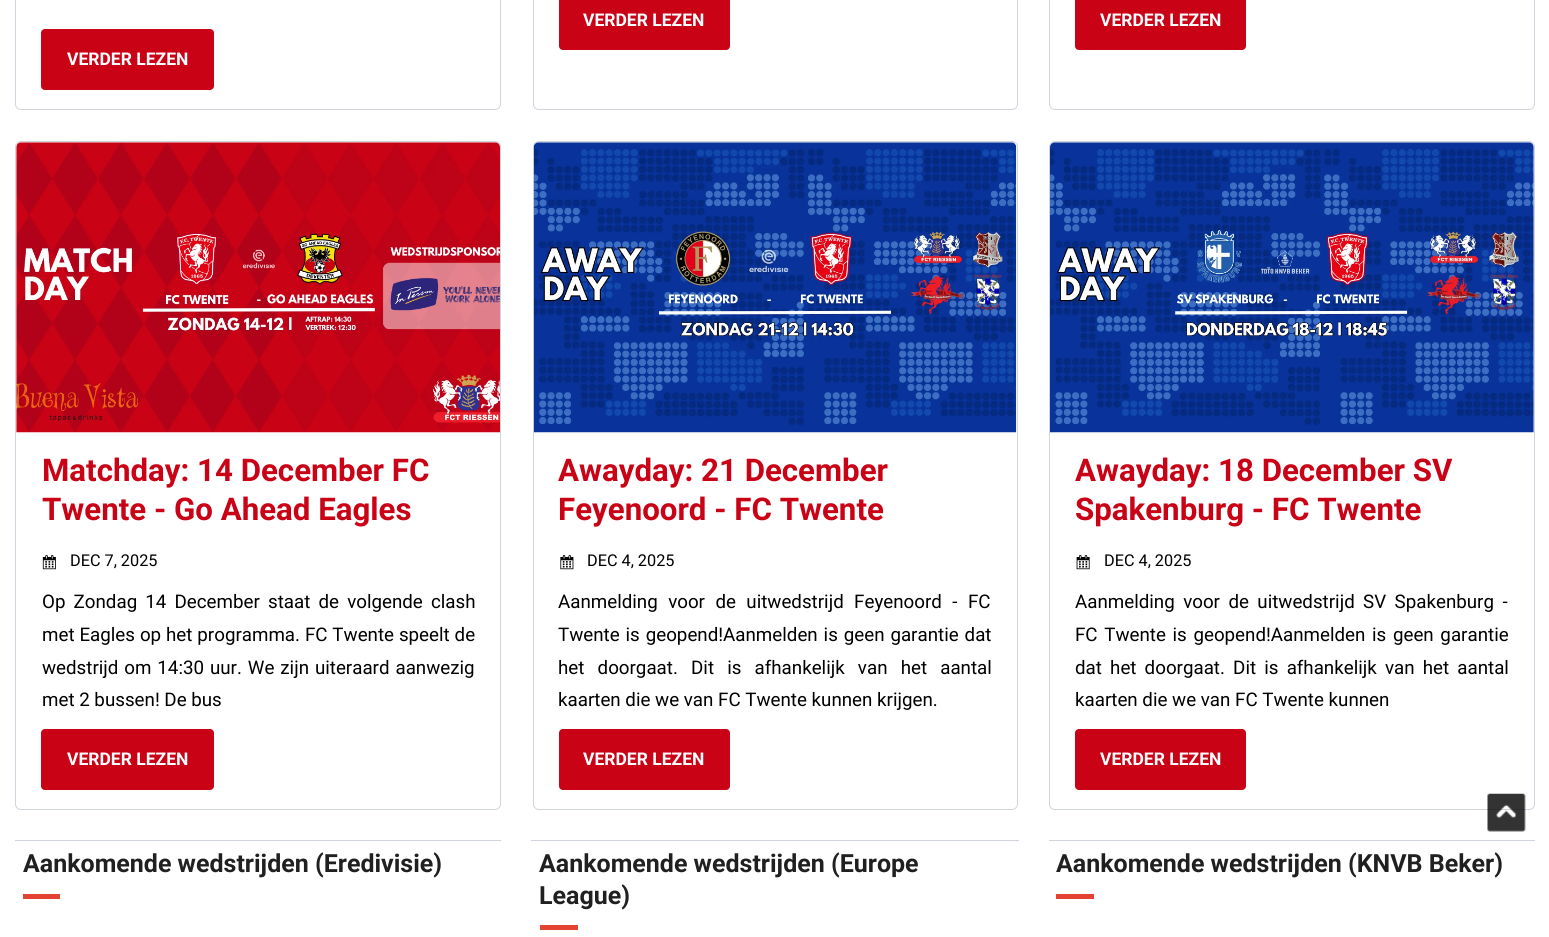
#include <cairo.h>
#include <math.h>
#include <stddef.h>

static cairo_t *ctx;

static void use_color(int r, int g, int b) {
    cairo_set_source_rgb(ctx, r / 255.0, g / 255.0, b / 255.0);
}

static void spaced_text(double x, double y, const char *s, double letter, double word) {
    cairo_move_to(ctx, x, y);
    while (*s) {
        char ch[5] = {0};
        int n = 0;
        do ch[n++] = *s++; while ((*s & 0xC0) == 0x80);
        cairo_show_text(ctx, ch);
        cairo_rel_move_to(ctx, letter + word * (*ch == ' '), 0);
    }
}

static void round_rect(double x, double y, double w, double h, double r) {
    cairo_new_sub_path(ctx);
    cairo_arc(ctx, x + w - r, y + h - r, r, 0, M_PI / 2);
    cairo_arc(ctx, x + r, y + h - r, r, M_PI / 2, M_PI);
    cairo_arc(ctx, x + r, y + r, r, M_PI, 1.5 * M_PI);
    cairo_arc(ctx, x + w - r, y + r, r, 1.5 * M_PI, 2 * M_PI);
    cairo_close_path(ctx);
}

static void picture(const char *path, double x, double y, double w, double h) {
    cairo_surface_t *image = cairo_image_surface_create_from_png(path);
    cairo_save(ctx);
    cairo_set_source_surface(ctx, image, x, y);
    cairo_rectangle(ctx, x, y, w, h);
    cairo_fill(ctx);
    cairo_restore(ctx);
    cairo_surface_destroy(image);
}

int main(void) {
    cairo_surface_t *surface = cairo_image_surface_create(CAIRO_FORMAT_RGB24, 1549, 937);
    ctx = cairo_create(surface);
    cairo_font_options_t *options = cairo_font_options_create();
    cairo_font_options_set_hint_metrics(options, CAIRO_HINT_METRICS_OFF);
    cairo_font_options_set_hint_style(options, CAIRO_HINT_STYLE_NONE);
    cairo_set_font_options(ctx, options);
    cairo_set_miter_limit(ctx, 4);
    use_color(255, 255, 255);
    cairo_paint(ctx);
    round_rect(533.5, -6.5, 484, 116, 5.5);
    use_color(207, 212, 221);
    cairo_set_line_width(ctx, 1);
    cairo_stroke(ctx);
    use_color(202, 2, 22);
    round_rect(559, -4, 171, 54, 4);
    cairo_fill(ctx);
    cairo_select_font_face(ctx, "Roboto", CAIRO_FONT_SLANT_NORMAL, CAIRO_FONT_WEIGHT_BOLD);
    cairo_set_font_size(ctx, 17.5);
    use_color(255, 255, 255);
    cairo_move_to(ctx, 583, 26);
    cairo_show_text(ctx, "VERDER LEZEN");
    round_rect(1049.5, -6.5, 485, 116, 5.5);
    use_color(207, 212, 221);
    cairo_stroke(ctx);
    use_color(202, 2, 22);
    round_rect(1075, -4, 171, 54, 4);
    cairo_fill(ctx);
    use_color(255, 255, 255);
    cairo_move_to(ctx, 1100, 26);
    cairo_show_text(ctx, "VERDER LEZEN");
    round_rect(15.5, -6.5, 485, 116, 5.5);
    use_color(207, 212, 221);
    cairo_stroke(ctx);
    use_color(202, 2, 22);
    round_rect(41, 29, 173, 61, 4);
    cairo_fill(ctx);
    use_color(255, 255, 255);
    cairo_move_to(ctx, 67, 65);
    cairo_show_text(ctx, "VERDER LEZEN");
    round_rect(15.5, 141.5, 485, 668, 5.5);
    use_color(207, 212, 221);
    cairo_stroke(ctx);
    picture("img1.png", 16, 142, 484, 291);
    cairo_set_font_size(ctx, 31.25);
    use_color(202, 2, 22);
    cairo_move_to(ctx, 42, 481);
    cairo_show_text(ctx, "Matchday: 14 December FC");
    cairo_move_to(ctx, 42, 520);
    cairo_show_text(ctx, "Twente - Go Ahead Eagles");
    picture("img2.png", 42, 555, 14, 15);
    cairo_select_font_face(ctx, "Roboto", CAIRO_FONT_SLANT_NORMAL, CAIRO_FONT_WEIGHT_NORMAL);
    cairo_set_font_size(ctx, 16.25);
    use_color(0, 0, 0);
    cairo_move_to(ctx, 70, 566);
    cairo_show_text(ctx, "DEC 7, 2025");
    cairo_set_font_size(ctx, 18.75);
    spaced_text(42, 608, "Op Zondag 14 December staat de volgende clash", 0, 3.5);
    spaced_text(42, 641, "met Eagles op het programma. FC Twente speelt de", 0, 0.25);
    spaced_text(42, 674, "wedstrijd om 14:30 uur. We zijn uiteraard aanwezig", 0, 1.25);
    cairo_move_to(ctx, 42, 706);
    cairo_show_text(ctx, "met 2 bussen! De bus");
    use_color(202, 2, 22);
    round_rect(41, 729, 173, 61, 4);
    cairo_fill(ctx);
    cairo_select_font_face(ctx, "Roboto", CAIRO_FONT_SLANT_NORMAL, CAIRO_FONT_WEIGHT_BOLD);
    cairo_set_font_size(ctx, 17.5);
    use_color(255, 255, 255);
    cairo_move_to(ctx, 67, 765);
    cairo_show_text(ctx, "VERDER LEZEN");
    round_rect(533.5, 141.5, 484, 668, 5.5);
    use_color(207, 212, 221);
    cairo_stroke(ctx);
    picture("img3.png", 533, 142, 484, 291);
    cairo_set_font_size(ctx, 31.25);
    use_color(202, 2, 22);
    cairo_move_to(ctx, 558, 481);
    cairo_show_text(ctx, "Awayday: 21 December");
    cairo_move_to(ctx, 558, 520);
    cairo_show_text(ctx, "Feyenoord - FC Twente");
    picture("img4.png", 560, 555, 14, 15);
    cairo_select_font_face(ctx, "Roboto", CAIRO_FONT_SLANT_NORMAL, CAIRO_FONT_WEIGHT_NORMAL);
    cairo_set_font_size(ctx, 16.25);
    use_color(0, 0, 0);
    cairo_move_to(ctx, 587, 566);
    cairo_show_text(ctx, "DEC 4, 2025");
    cairo_set_font_size(ctx, 18.75);
    spaced_text(558, 608, "Aanmelding voor de uitwedstrijd Feyenoord - FC", 0, 5.75);
    spaced_text(558, 641, "Twente is geopend!Aanmelden is geen garantie dat", 0, 1.25);
    spaced_text(558, 674, "het doorgaat. Dit is afhankelijk van het aantal", 0, 8.5);
    cairo_move_to(ctx, 558, 706);
    cairo_show_text(ctx, "kaarten die we van FC Twente kunnen krijgen.");
    use_color(202, 2, 22);
    round_rect(559, 729, 171, 61, 4);
    cairo_fill(ctx);
    cairo_select_font_face(ctx, "Roboto", CAIRO_FONT_SLANT_NORMAL, CAIRO_FONT_WEIGHT_BOLD);
    cairo_set_font_size(ctx, 17.5);
    use_color(255, 255, 255);
    cairo_move_to(ctx, 583, 765);
    cairo_show_text(ctx, "VERDER LEZEN");
    round_rect(1049.5, 141.5, 485, 668, 5.5);
    use_color(207, 212, 221);
    cairo_stroke(ctx);
    picture("img5.png", 1050, 142, 484, 291);
    cairo_set_font_size(ctx, 31.25);
    use_color(202, 2, 22);
    cairo_move_to(ctx, 1075, 481);
    cairo_show_text(ctx, "Awayday: 18 December SV");
    cairo_move_to(ctx, 1075, 520);
    cairo_show_text(ctx, "Spakenburg - FC Twente");
    picture("img6.png", 1076, 555, 14, 15);
    cairo_select_font_face(ctx, "Roboto", CAIRO_FONT_SLANT_NORMAL, CAIRO_FONT_WEIGHT_NORMAL);
    cairo_set_font_size(ctx, 16.25);
    use_color(0, 0, 0);
    cairo_move_to(ctx, 1104, 566);
    cairo_show_text(ctx, "DEC 4, 2025");
    cairo_set_font_size(ctx, 18.75);
    spaced_text(1075, 608, "Aanmelding voor de uitwedstrijd SV Spakenburg -", 0, 3.75);
    spaced_text(1075, 641, "FC Twente is geopend!Aanmelden is geen garantie", 0, 2);
    spaced_text(1075, 674, "dat het doorgaat. Dit is afhankelijk van het aantal", 0, 3.5);
    cairo_move_to(ctx, 1075, 706);
    cairo_show_text(ctx, "kaarten die we van FC Twente kunnen");
    use_color(202, 2, 22);
    round_rect(1075, 729, 171, 61, 4);
    cairo_fill(ctx);
    cairo_select_font_face(ctx, "Roboto", CAIRO_FONT_SLANT_NORMAL, CAIRO_FONT_WEIGHT_BOLD);
    cairo_set_font_size(ctx, 17.5);
    use_color(255, 255, 255);
    cairo_move_to(ctx, 1100, 765);
    cairo_show_text(ctx, "VERDER LEZEN");
    use_color(207, 212, 221);
    cairo_rectangle(ctx, 15, 840, 486, 1);
    cairo_fill(ctx);
    cairo_set_font_size(ctx, 25);
    use_color(32, 32, 32);
    cairo_move_to(ctx, 23, 872);
    cairo_show_text(ctx, "Aankomende wedstrijden (Eredivisie)");
    use_color(227, 67, 51);
    cairo_rectangle(ctx, 23, 894, 37, 5);
    cairo_fill(ctx);
    use_color(207, 212, 221);
    cairo_rectangle(ctx, 531, 840, 488, 1);
    cairo_fill(ctx);
    use_color(32, 32, 32);
    cairo_move_to(ctx, 539, 872);
    cairo_show_text(ctx, "Aankomende wedstrijden (Europe");
    cairo_move_to(ctx, 539, 904);
    cairo_show_text(ctx, "League)");
    use_color(227, 67, 51);
    cairo_rectangle(ctx, 540, 925, 38, 5);
    cairo_fill(ctx);
    use_color(207, 212, 221);
    cairo_rectangle(ctx, 1049, 840, 486, 1);
    cairo_fill(ctx);
    use_color(32, 32, 32);
    cairo_move_to(ctx, 1056, 872);
    cairo_show_text(ctx, "Aankomende wedstrijden (KNVB Beker)");
    use_color(227, 67, 51);
    cairo_rectangle(ctx, 1056, 894, 38, 5);
    cairo_fill(ctx);
    picture("img7.png", 1487, 793, 39, 39);
    cairo_surface_write_to_png(surface, "result.png");
    cairo_font_options_destroy(options);
    cairo_destroy(ctx);
    cairo_surface_destroy(surface);
    return 0;
}
